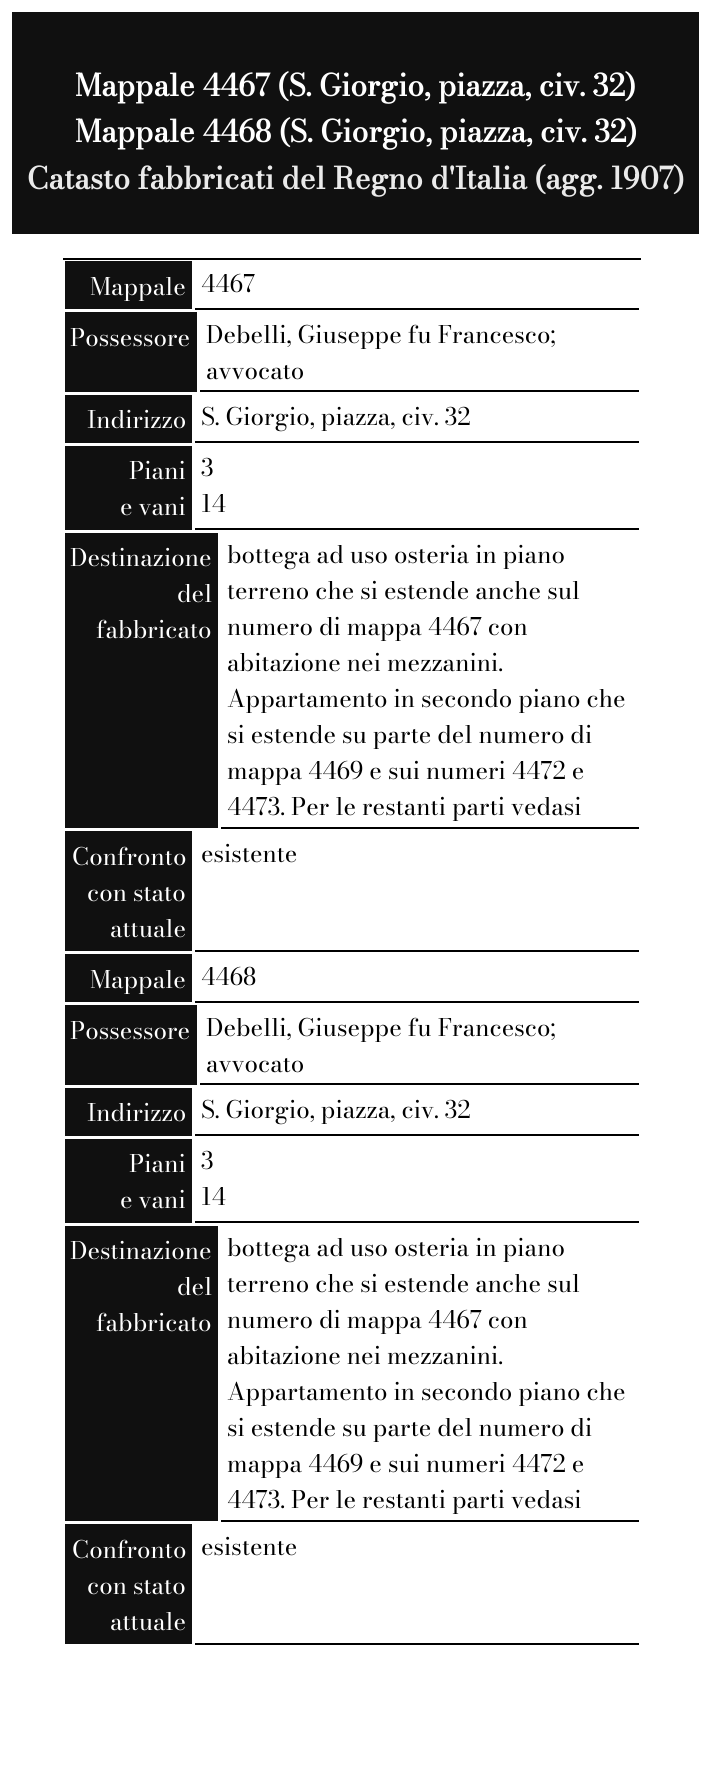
#include <cairo.h>
#include <math.h>
#include <stddef.h>

static cairo_t *ctx;

static void use_color(int r, int g, int b) {
    cairo_set_source_rgb(ctx, r / 255.0, g / 255.0, b / 255.0);
}

int main(void) {
    cairo_surface_t *surface = cairo_image_surface_create(CAIRO_FORMAT_RGB24, 703, 1777);
    ctx = cairo_create(surface);
    cairo_font_options_t *options = cairo_font_options_create();
    cairo_font_options_set_hint_metrics(options, CAIRO_HINT_METRICS_OFF);
    cairo_font_options_set_hint_style(options, CAIRO_HINT_STYLE_NONE);
    cairo_set_font_options(ctx, options);
    cairo_set_miter_limit(ctx, 4);
    use_color(255, 255, 255);
    cairo_paint(ctx);
    use_color(16, 16, 16);
    cairo_rectangle(ctx, 12, 12, 687, 222);
    cairo_fill(ctx);
    cairo_select_font_face(ctx, "Bodoni Moda", CAIRO_FONT_SLANT_NORMAL, CAIRO_FONT_WEIGHT_BOLD);
    cairo_set_font_size(ctx, 30);
    use_color(255, 255, 255);
    cairo_move_to(ctx, 75, 96);
    cairo_show_text(ctx, "Mappale 4467 (S. Giorgio, piazza, civ. 32)");
    cairo_move_to(ctx, 75, 142);
    cairo_show_text(ctx, "Mappale 4468 (S. Giorgio, piazza, civ. 32)");
    use_color(234, 234, 234);
    cairo_move_to(ctx, 27, 189);
    cairo_show_text(ctx, "Catasto fabbricati del Regno d'Italia (agg. 1907)");
    use_color(0, 0, 0);
    cairo_rectangle(ctx, 63, 258, 578, 2);
    cairo_fill(ctx);
    use_color(16, 16, 16);
    cairo_rectangle(ctx, 65, 261, 127, 48);
    cairo_fill(ctx);
    cairo_select_font_face(ctx, "Bodoni Moda", CAIRO_FONT_SLANT_NORMAL, CAIRO_FONT_WEIGHT_NORMAL);
    cairo_set_font_size(ctx, 24);
    use_color(255, 255, 255);
    cairo_move_to(ctx, 90, 295);
    cairo_show_text(ctx, "Mappale");
    use_color(0, 0, 0);
    cairo_rectangle(ctx, 195, 308, 444, 2);
    cairo_fill(ctx);
    cairo_move_to(ctx, 201, 292);
    cairo_show_text(ctx, "4467");
    use_color(16, 16, 16);
    cairo_rectangle(ctx, 65, 312, 132, 80);
    cairo_fill(ctx);
    use_color(255, 255, 255);
    cairo_move_to(ctx, 70, 346);
    cairo_show_text(ctx, "Possessore");
    use_color(0, 0, 0);
    cairo_rectangle(ctx, 200, 390, 439, 2);
    cairo_fill(ctx);
    cairo_move_to(ctx, 206, 343);
    cairo_show_text(ctx, "Debelli, Giuseppe fu Francesco;");
    cairo_move_to(ctx, 206, 379);
    cairo_show_text(ctx, "avvocato");
    use_color(16, 16, 16);
    cairo_rectangle(ctx, 65, 395, 127, 48);
    cairo_fill(ctx);
    use_color(255, 255, 255);
    cairo_move_to(ctx, 87, 428);
    cairo_show_text(ctx, "Indirizzo");
    use_color(0, 0, 0);
    cairo_rectangle(ctx, 195, 441, 444, 2);
    cairo_fill(ctx);
    cairo_move_to(ctx, 201, 425);
    cairo_show_text(ctx, "S. Giorgio, piazza, civ. 32");
    use_color(16, 16, 16);
    cairo_rectangle(ctx, 65, 446, 127, 84);
    cairo_fill(ctx);
    use_color(255, 255, 255);
    cairo_move_to(ctx, 129, 479);
    cairo_show_text(ctx, "Piani");
    cairo_move_to(ctx, 120, 515);
    cairo_show_text(ctx, "e vani");
    use_color(0, 0, 0);
    cairo_rectangle(ctx, 195, 528, 444, 2);
    cairo_fill(ctx);
    cairo_move_to(ctx, 201, 476);
    cairo_show_text(ctx, "3");
    cairo_move_to(ctx, 201, 512);
    cairo_show_text(ctx, "14");
    use_color(16, 16, 16);
    cairo_rectangle(ctx, 65, 533, 153, 295);
    cairo_fill(ctx);
    use_color(255, 255, 255);
    cairo_move_to(ctx, 70, 566);
    cairo_show_text(ctx, "Destinazione");
    cairo_move_to(ctx, 177, 602);
    cairo_show_text(ctx, "del");
    cairo_move_to(ctx, 96, 638);
    cairo_show_text(ctx, "fabbricato");
    use_color(0, 0, 0);
    cairo_rectangle(ctx, 221, 827, 418, 2);
    cairo_fill(ctx);
    cairo_move_to(ctx, 227, 563);
    cairo_show_text(ctx, "bottega ad uso osteria in piano");
    cairo_move_to(ctx, 227, 599);
    cairo_show_text(ctx, "terreno che si estende anche sul");
    cairo_move_to(ctx, 227, 635);
    cairo_show_text(ctx, "numero di mappa 4467 con");
    cairo_move_to(ctx, 227, 671);
    cairo_show_text(ctx, "abitazione nei mezzanini.");
    cairo_move_to(ctx, 227, 707);
    cairo_show_text(ctx, "Appartamento in secondo piano che");
    cairo_move_to(ctx, 227, 743);
    cairo_show_text(ctx, "si estende su parte del numero di");
    cairo_move_to(ctx, 227, 779);
    cairo_show_text(ctx, "mappa 4469 e sui numeri 4472 e");
    cairo_move_to(ctx, 227, 815);
    cairo_show_text(ctx, "4473. Per le restanti parti vedasi");
    use_color(16, 16, 16);
    cairo_rectangle(ctx, 65, 831, 127, 120);
    cairo_fill(ctx);
    use_color(255, 255, 255);
    cairo_move_to(ctx, 72, 865);
    cairo_show_text(ctx, "Confronto");
    cairo_move_to(ctx, 87, 901);
    cairo_show_text(ctx, "con stato");
    cairo_move_to(ctx, 110, 937);
    cairo_show_text(ctx, "attuale");
    use_color(0, 0, 0);
    cairo_rectangle(ctx, 195, 950, 444, 2);
    cairo_fill(ctx);
    cairo_move_to(ctx, 201, 862);
    cairo_show_text(ctx, "esistente");
    use_color(16, 16, 16);
    cairo_rectangle(ctx, 65, 954, 127, 48);
    cairo_fill(ctx);
    use_color(255, 255, 255);
    cairo_move_to(ctx, 90, 988);
    cairo_show_text(ctx, "Mappale");
    use_color(0, 0, 0);
    cairo_rectangle(ctx, 195, 1001, 444, 2);
    cairo_fill(ctx);
    cairo_move_to(ctx, 201, 985);
    cairo_show_text(ctx, "4468");
    use_color(16, 16, 16);
    cairo_rectangle(ctx, 65, 1005, 132, 80);
    cairo_fill(ctx);
    use_color(255, 255, 255);
    cairo_move_to(ctx, 70, 1039);
    cairo_show_text(ctx, "Possessore");
    use_color(0, 0, 0);
    cairo_rectangle(ctx, 200, 1083, 439, 2);
    cairo_fill(ctx);
    cairo_move_to(ctx, 206, 1036);
    cairo_show_text(ctx, "Debelli, Giuseppe fu Francesco;");
    cairo_move_to(ctx, 206, 1072);
    cairo_show_text(ctx, "avvocato");
    use_color(16, 16, 16);
    cairo_rectangle(ctx, 65, 1088, 127, 48);
    cairo_fill(ctx);
    use_color(255, 255, 255);
    cairo_move_to(ctx, 87, 1121);
    cairo_show_text(ctx, "Indirizzo");
    use_color(0, 0, 0);
    cairo_rectangle(ctx, 195, 1134, 444, 2);
    cairo_fill(ctx);
    cairo_move_to(ctx, 201, 1118);
    cairo_show_text(ctx, "S. Giorgio, piazza, civ. 32");
    use_color(16, 16, 16);
    cairo_rectangle(ctx, 65, 1139, 127, 84);
    cairo_fill(ctx);
    use_color(255, 255, 255);
    cairo_move_to(ctx, 129, 1172);
    cairo_show_text(ctx, "Piani");
    cairo_move_to(ctx, 120, 1208);
    cairo_show_text(ctx, "e vani");
    use_color(0, 0, 0);
    cairo_rectangle(ctx, 195, 1221, 444, 2);
    cairo_fill(ctx);
    cairo_move_to(ctx, 201, 1169);
    cairo_show_text(ctx, "3");
    cairo_move_to(ctx, 201, 1205);
    cairo_show_text(ctx, "14");
    use_color(16, 16, 16);
    cairo_rectangle(ctx, 65, 1226, 153, 295);
    cairo_fill(ctx);
    use_color(255, 255, 255);
    cairo_move_to(ctx, 70, 1259);
    cairo_show_text(ctx, "Destinazione");
    cairo_move_to(ctx, 177, 1295);
    cairo_show_text(ctx, "del");
    cairo_move_to(ctx, 96, 1331);
    cairo_show_text(ctx, "fabbricato");
    use_color(0, 0, 0);
    cairo_rectangle(ctx, 221, 1520, 418, 2);
    cairo_fill(ctx);
    cairo_move_to(ctx, 227, 1256);
    cairo_show_text(ctx, "bottega ad uso osteria in piano");
    cairo_move_to(ctx, 227, 1292);
    cairo_show_text(ctx, "terreno che si estende anche sul");
    cairo_move_to(ctx, 227, 1328);
    cairo_show_text(ctx, "numero di mappa 4467 con");
    cairo_move_to(ctx, 227, 1364);
    cairo_show_text(ctx, "abitazione nei mezzanini.");
    cairo_move_to(ctx, 227, 1400);
    cairo_show_text(ctx, "Appartamento in secondo piano che");
    cairo_move_to(ctx, 227, 1436);
    cairo_show_text(ctx, "si estende su parte del numero di");
    cairo_move_to(ctx, 227, 1472);
    cairo_show_text(ctx, "mappa 4469 e sui numeri 4472 e");
    cairo_move_to(ctx, 227, 1508);
    cairo_show_text(ctx, "4473. Per le restanti parti vedasi");
    use_color(16, 16, 16);
    cairo_rectangle(ctx, 65, 1524, 127, 120);
    cairo_fill(ctx);
    use_color(255, 255, 255);
    cairo_move_to(ctx, 72, 1558);
    cairo_show_text(ctx, "Confronto");
    cairo_move_to(ctx, 87, 1594);
    cairo_show_text(ctx, "con stato");
    cairo_move_to(ctx, 110, 1630);
    cairo_show_text(ctx, "attuale");
    use_color(0, 0, 0);
    cairo_rectangle(ctx, 195, 1643, 444, 2);
    cairo_fill(ctx);
    cairo_move_to(ctx, 201, 1555);
    cairo_show_text(ctx, "esistente");
    cairo_surface_write_to_png(surface, "result.png");
    cairo_font_options_destroy(options);
    cairo_destroy(ctx);
    cairo_surface_destroy(surface);
    return 0;
}
